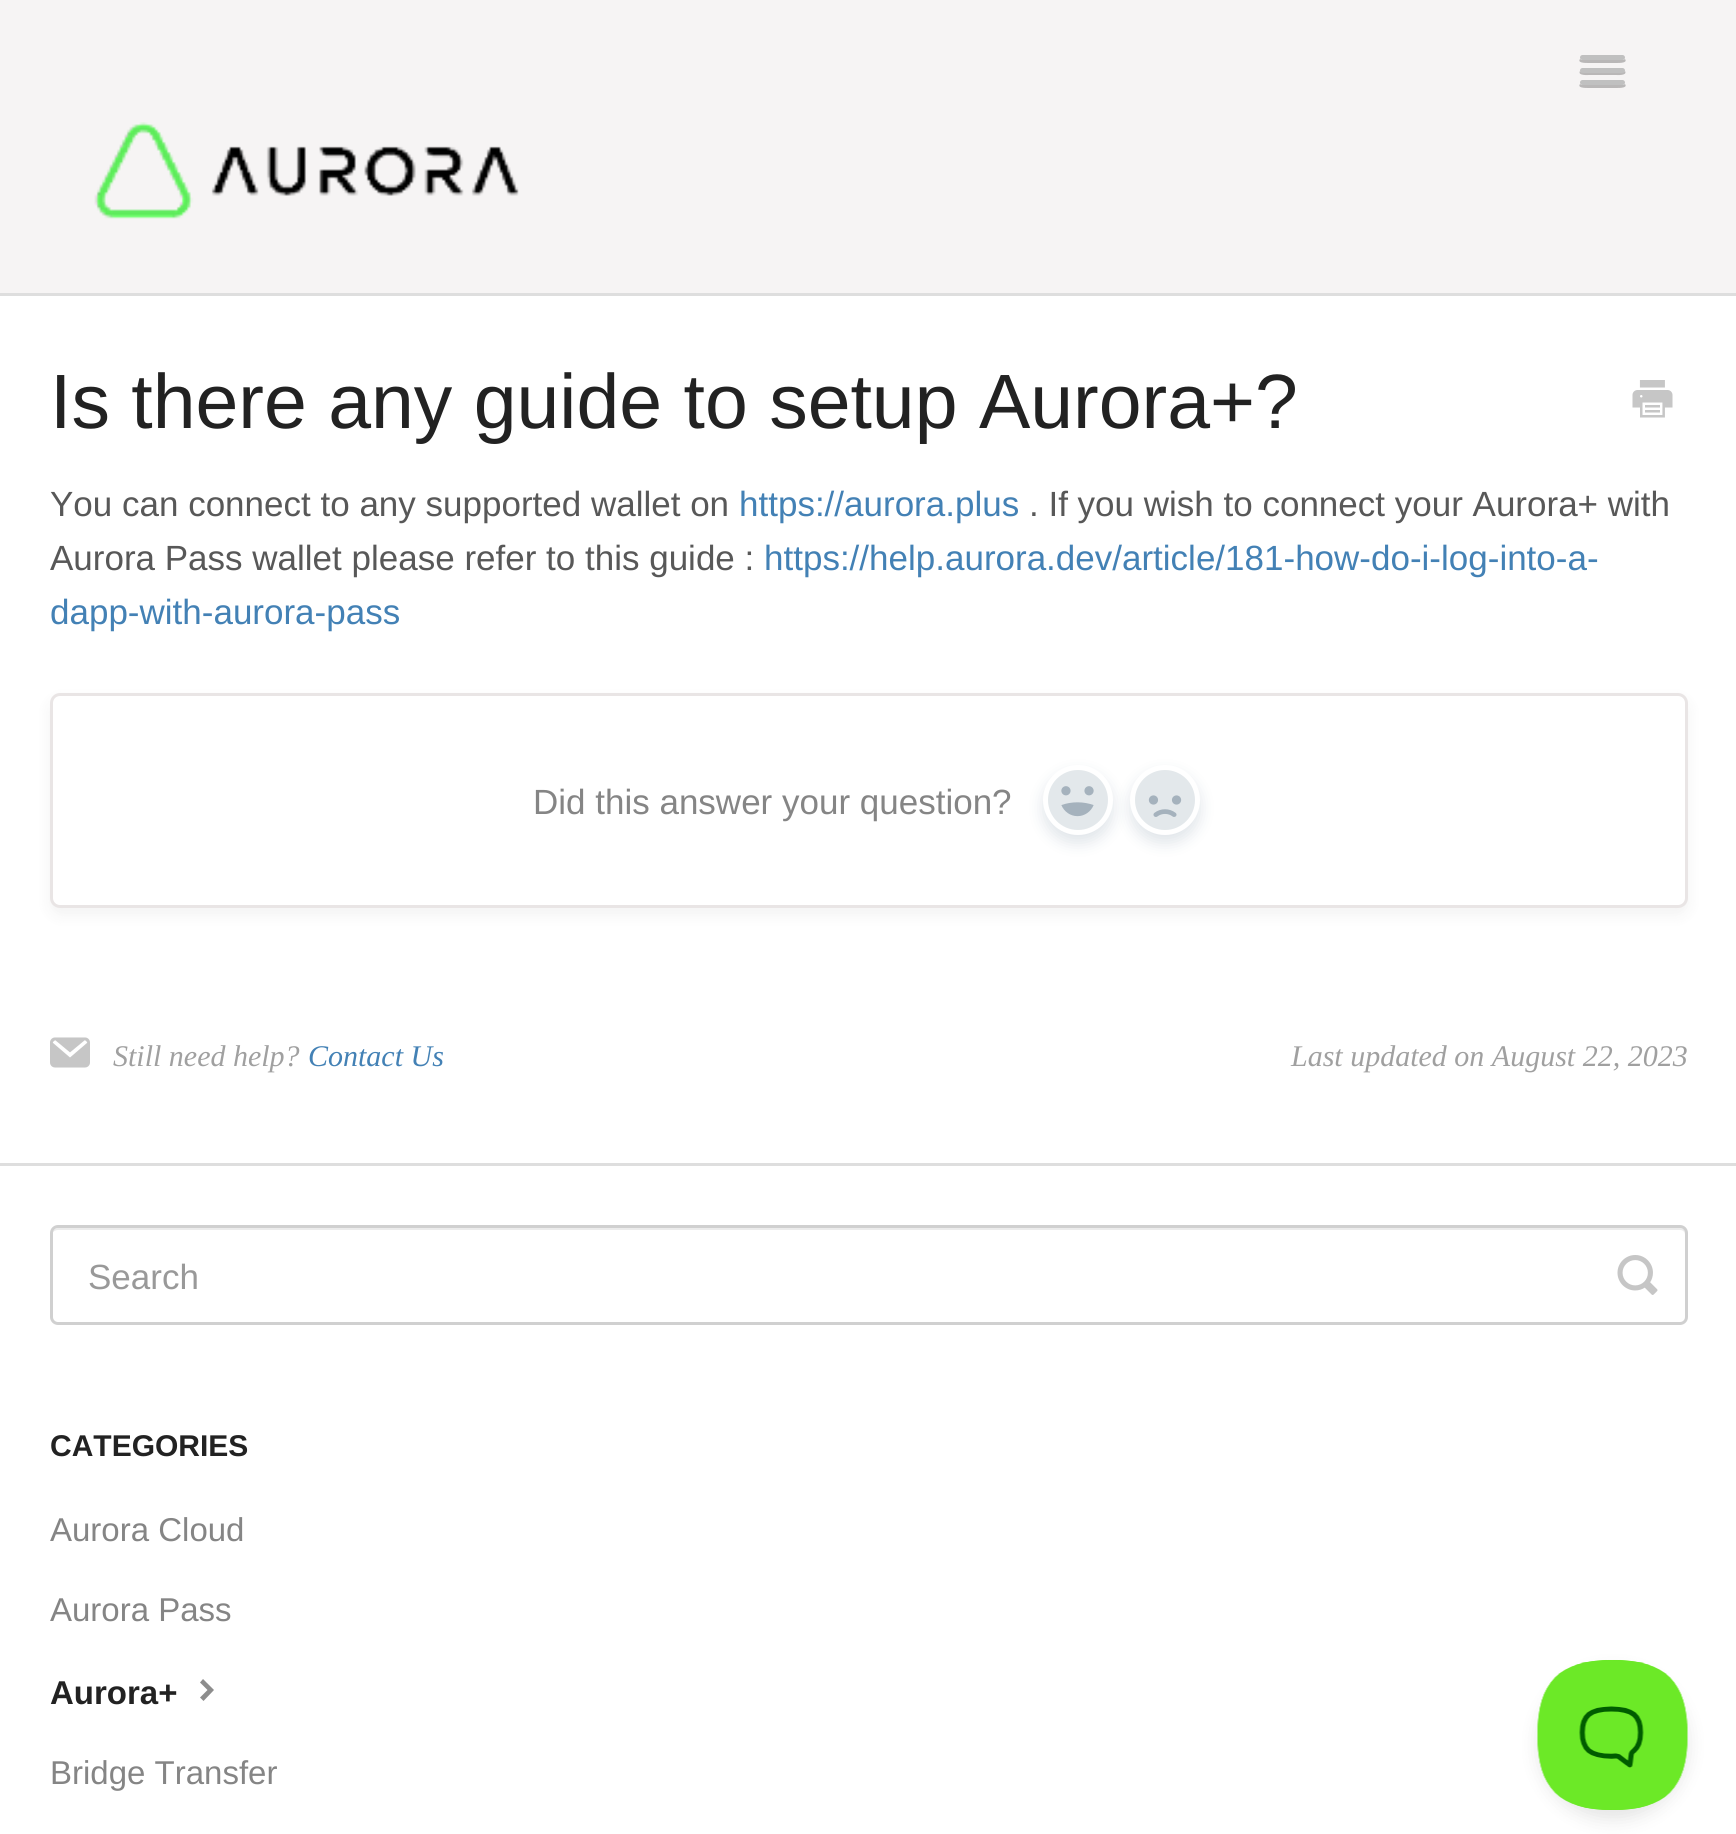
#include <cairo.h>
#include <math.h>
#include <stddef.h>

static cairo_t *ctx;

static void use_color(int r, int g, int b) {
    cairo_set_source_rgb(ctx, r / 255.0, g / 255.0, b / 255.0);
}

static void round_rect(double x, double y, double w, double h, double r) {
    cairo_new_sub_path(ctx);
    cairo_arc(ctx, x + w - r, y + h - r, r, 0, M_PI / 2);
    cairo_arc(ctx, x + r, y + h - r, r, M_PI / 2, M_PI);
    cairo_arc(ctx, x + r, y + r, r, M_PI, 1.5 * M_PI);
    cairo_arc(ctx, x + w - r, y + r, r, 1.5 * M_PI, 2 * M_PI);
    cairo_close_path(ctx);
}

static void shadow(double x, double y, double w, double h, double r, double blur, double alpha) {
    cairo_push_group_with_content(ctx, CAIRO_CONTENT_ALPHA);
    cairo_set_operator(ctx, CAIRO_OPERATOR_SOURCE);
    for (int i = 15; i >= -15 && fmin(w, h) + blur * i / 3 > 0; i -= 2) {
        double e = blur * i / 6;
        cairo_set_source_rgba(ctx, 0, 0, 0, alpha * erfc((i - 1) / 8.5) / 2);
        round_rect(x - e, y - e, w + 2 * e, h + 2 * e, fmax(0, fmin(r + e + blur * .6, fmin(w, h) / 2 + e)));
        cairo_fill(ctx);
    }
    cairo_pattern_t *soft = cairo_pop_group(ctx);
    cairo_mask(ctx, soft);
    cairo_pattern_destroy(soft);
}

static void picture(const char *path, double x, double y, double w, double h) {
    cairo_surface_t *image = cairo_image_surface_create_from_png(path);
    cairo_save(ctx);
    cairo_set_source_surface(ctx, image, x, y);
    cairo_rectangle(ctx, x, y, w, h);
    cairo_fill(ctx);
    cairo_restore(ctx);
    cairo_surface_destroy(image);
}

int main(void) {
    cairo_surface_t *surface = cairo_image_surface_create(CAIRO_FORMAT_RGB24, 1736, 1834);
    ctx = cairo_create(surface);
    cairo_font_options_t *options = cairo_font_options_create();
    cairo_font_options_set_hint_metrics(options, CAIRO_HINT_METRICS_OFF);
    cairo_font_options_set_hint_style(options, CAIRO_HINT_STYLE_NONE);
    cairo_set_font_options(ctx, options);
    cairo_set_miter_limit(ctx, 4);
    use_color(255, 255, 255);
    cairo_paint(ctx);
    use_color(246, 244, 244);
    cairo_rectangle(ctx, 0, 0, 1736, 293);
    cairo_fill(ctx);
    use_color(185, 183, 183);
    cairo_new_path(ctx);
    cairo_move_to(ctx, 1580, 59);
    cairo_curve_to(ctx, 1577, 63, 1585, 63, 1589, 63);
    cairo_line_to(ctx, 1616, 63);
    cairo_curve_to(ctx, 1620, 63, 1628, 63, 1625, 59);
    cairo_line_to(ctx, 1623, 60);
    cairo_line_to(ctx, 1582, 60);
    cairo_close_path(ctx);
    cairo_fill(ctx);
    use_color(192, 192, 192);
    round_rect(1580, 55, 45, 5, 2.5);
    cairo_fill(ctx);
    use_color(185, 183, 183);
    cairo_new_path(ctx);
    cairo_move_to(ctx, 1580, 71);
    cairo_curve_to(ctx, 1577, 76, 1589, 75, 1589, 75);
    cairo_line_to(ctx, 1616, 75);
    cairo_curve_to(ctx, 1616, 75, 1628, 76, 1625, 71);
    cairo_curve_to(ctx, 1624, 72, 1623, 72, 1622, 72);
    cairo_line_to(ctx, 1582, 72);
    cairo_curve_to(ctx, 1582, 72, 1581, 72, 1580, 71);
    cairo_close_path(ctx);
    cairo_fill(ctx);
    use_color(192, 192, 192);
    round_rect(1580, 68, 45, 5, 2.5);
    cairo_fill(ctx);
    use_color(185, 183, 183);
    cairo_new_path(ctx);
    cairo_move_to(ctx, 1580, 84);
    cairo_curve_to(ctx, 1577, 88, 1585, 88, 1589, 88);
    cairo_line_to(ctx, 1616, 88);
    cairo_curve_to(ctx, 1620, 88, 1628, 88, 1625, 84);
    cairo_line_to(ctx, 1623, 85);
    cairo_line_to(ctx, 1582, 85);
    cairo_close_path(ctx);
    cairo_fill(ctx);
    use_color(192, 192, 192);
    round_rect(1580, 80, 45, 5, 2.5);
    cairo_fill(ctx);
    picture("img1.png", 94, 122, 425, 97);
    use_color(222, 222, 222);
    cairo_rectangle(ctx, 0, 293, 1736, 3);
    cairo_fill(ctx);
    cairo_rectangle(ctx, 0, 1163, 1736, 3);
    cairo_fill(ctx);
    cairo_select_font_face(ctx, "Liberation Sans", CAIRO_FONT_SLANT_NORMAL, CAIRO_FONT_WEIGHT_NORMAL);
    cairo_set_font_size(ctx, 77);
    use_color(34, 34, 34);
    cairo_move_to(ctx, 50, 428);
    cairo_show_text(ctx, "Is there any guide to setup Aurora+?");
    picture("img2.png", 1632, 380, 41, 38);
    cairo_set_font_size(ctx, 35);
    use_color(88, 88, 88);
    cairo_move_to(ctx, 50, 516);
    cairo_show_text(ctx, "You can connect to any supported wallet on");
    use_color(67, 129, 181);
    cairo_move_to(ctx, 739, 516);
    cairo_show_text(ctx, "https://aurora.plus");
    use_color(88, 88, 88);
    cairo_move_to(ctx, 1029, 516);
    cairo_show_text(ctx, ". If you wish to connect your Aurora+ with");
    cairo_move_to(ctx, 50, 570);
    cairo_show_text(ctx, "Aurora Pass wallet please refer to this guide :");
    use_color(67, 129, 181);
    cairo_move_to(ctx, 764, 570);
    cairo_show_text(ctx, "https://help.aurora.dev/article/181-how-do-i-log-into-a-");
    cairo_move_to(ctx, 50, 624);
    cairo_show_text(ctx, "dapp-with-aurora-pass");
    use_color(0, 0, 0);
    shadow(50, 700, 1638, 215, 10, 7.5, 0.05);
    use_color(255, 255, 255);
    round_rect(51.5, 694.5, 1635, 212, 8.5);
    cairo_fill_preserve(ctx);
    use_color(233, 229, 229);
    cairo_set_line_width(ctx, 3);
    cairo_stroke(ctx);
    use_color(133, 133, 133);
    cairo_move_to(ctx, 533, 814);
    cairo_show_text(ctx, "Did this answer your question?");
    use_color(193, 203, 212);
    shadow(1043, 773, 70, 70, 35, 7.5, 0.5);
    use_color(227, 232, 235);
    cairo_arc(ctx, 1078, 800, 32.5, 0, 2 * M_PI);
    cairo_fill_preserve(ctx);
    use_color(255, 255, 255);
    cairo_set_line_width(ctx, 5);
    cairo_stroke(ctx);
    picture("img3.png", 1061, 786, 33, 31);
    use_color(193, 203, 212);
    shadow(1130, 773, 70, 70, 35, 7.5, 0.5);
    use_color(227, 232, 235);
    cairo_arc(ctx, 1165, 800, 32.5, 0, 2 * M_PI);
    cairo_fill_preserve(ctx);
    use_color(255, 255, 255);
    cairo_stroke(ctx);
    picture("img4.png", 1148, 795, 34, 22);
    picture("img5.png", 50, 1037, 40, 31);
    cairo_select_font_face(ctx, "Liberation Serif", CAIRO_FONT_SLANT_ITALIC, CAIRO_FONT_WEIGHT_NORMAL);
    cairo_set_font_size(ctx, 30);
    use_color(160, 160, 160);
    cairo_move_to(ctx, 113, 1066);
    cairo_show_text(ctx, "Still need help?");
    use_color(67, 129, 181);
    cairo_move_to(ctx, 308, 1066);
    cairo_show_text(ctx, "Contact Us");
    use_color(160, 160, 160);
    cairo_move_to(ctx, 1291, 1066);
    cairo_show_text(ctx, "Last updated on August 22, 2023");
    use_color(236, 236, 236);
    cairo_new_path(ctx);
    cairo_move_to(ctx, 58, 1230);
    cairo_line_to(ctx, 1680, 1230);
    cairo_curve_to(ctx, 1683, 1230, 1685, 1232, 1685, 1235);
    cairo_line_to(ctx, 1685, 1233);
    cairo_curve_to(ctx, 1685, 1230, 1683, 1228, 1680, 1228);
    cairo_line_to(ctx, 58, 1228);
    cairo_curve_to(ctx, 56, 1228, 53, 1230, 53, 1232);
    cairo_curve_to(ctx, 54, 1231, 56, 1230, 58, 1230);
    cairo_close_path(ctx);
    cairo_fill(ctx);
    round_rect(51.5, 1226.5, 1635, 97, 6.5);
    use_color(208, 208, 208);
    cairo_set_line_width(ctx, 3);
    cairo_stroke(ctx);
    cairo_select_font_face(ctx, "Liberation Sans", CAIRO_FONT_SLANT_NORMAL, CAIRO_FONT_WEIGHT_NORMAL);
    cairo_set_font_size(ctx, 35);
    use_color(153, 153, 153);
    cairo_move_to(ctx, 88, 1289);
    cairo_show_text(ctx, "Search");
    picture("img6.png", 1617, 1255, 41, 40);
    cairo_select_font_face(ctx, "Liberation Sans", CAIRO_FONT_SLANT_NORMAL, CAIRO_FONT_WEIGHT_BOLD);
    cairo_set_font_size(ctx, 30);
    use_color(34, 34, 34);
    cairo_move_to(ctx, 50, 1456);
    cairo_show_text(ctx, "CATEGORIES");
    cairo_select_font_face(ctx, "Liberation Sans", CAIRO_FONT_SLANT_NORMAL, CAIRO_FONT_WEIGHT_NORMAL);
    cairo_set_font_size(ctx, 33);
    use_color(133, 133, 133);
    cairo_move_to(ctx, 50, 1541);
    cairo_show_text(ctx, "Aurora Cloud");
    cairo_move_to(ctx, 50, 1621);
    cairo_show_text(ctx, "Aurora Pass");
    cairo_select_font_face(ctx, "Liberation Sans", CAIRO_FONT_SLANT_NORMAL, CAIRO_FONT_WEIGHT_BOLD);
    use_color(34, 34, 34);
    cairo_move_to(ctx, 50, 1704);
    cairo_show_text(ctx, "Aurora+");
    use_color(141, 141, 141);
    cairo_new_path(ctx);
    cairo_move_to(ctx, 203, 1679);
    cairo_line_to(ctx, 200, 1682.5);
    cairo_line_to(ctx, 207.5, 1690);
    cairo_line_to(ctx, 200, 1697.5);
    cairo_line_to(ctx, 203.5, 1701);
    cairo_line_to(ctx, 214, 1690);
    cairo_close_path(ctx);
    cairo_fill(ctx);
    cairo_select_font_face(ctx, "Liberation Sans", CAIRO_FONT_SLANT_NORMAL, CAIRO_FONT_WEIGHT_NORMAL);
    use_color(133, 133, 133);
    cairo_move_to(ctx, 50, 1784);
    cairo_show_text(ctx, "Bridge Transfer");
    use_color(0, 0, 0);
    shadow(1538, 1670, 150, 150, 75, 9, 0.1);
    picture("img7.png", 1537, 1660, 151, 150);
    cairo_surface_write_to_png(surface, "result.png");
    cairo_font_options_destroy(options);
    cairo_destroy(ctx);
    cairo_surface_destroy(surface);
    return 0;
}
